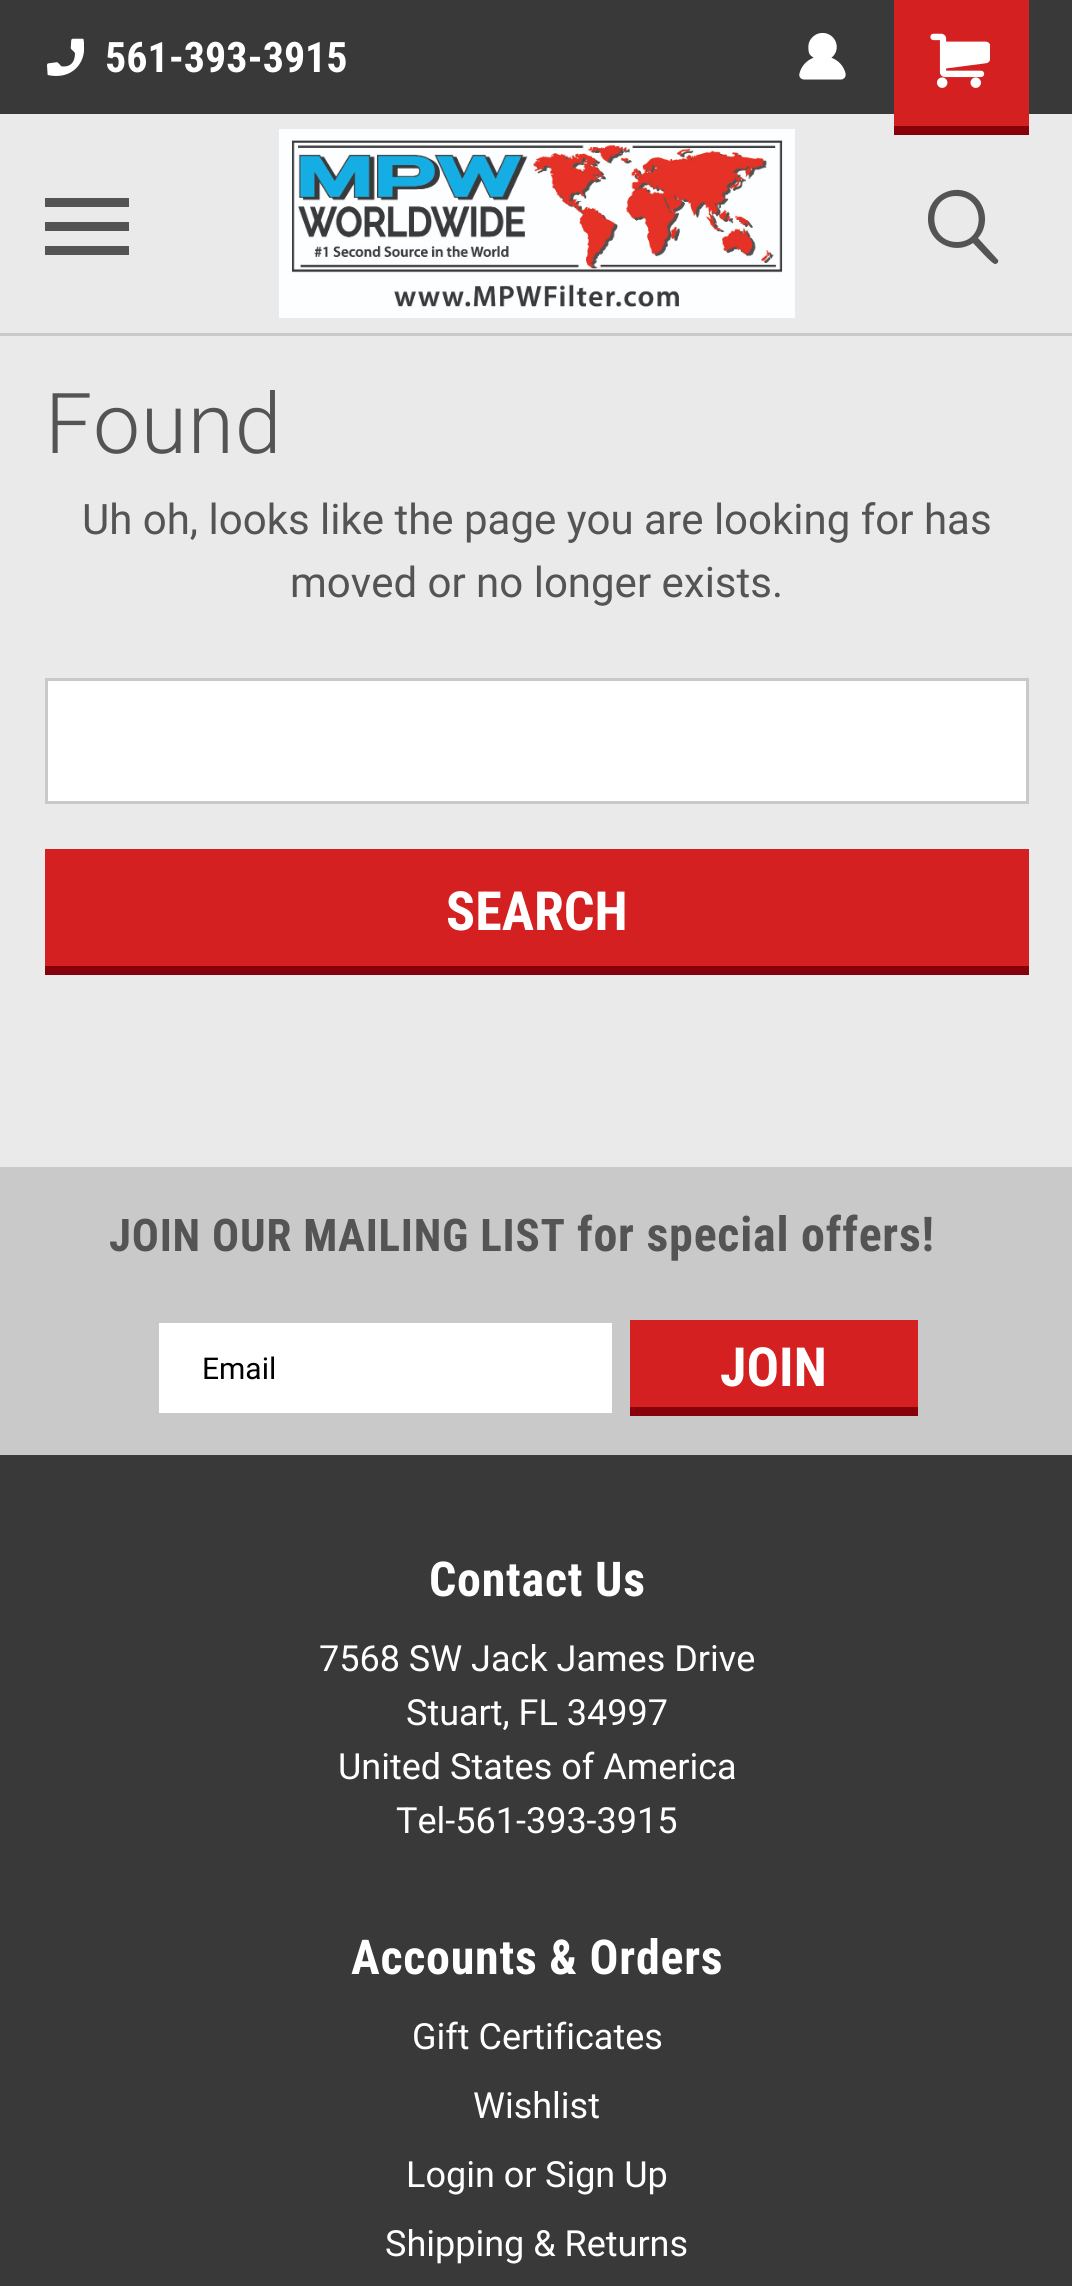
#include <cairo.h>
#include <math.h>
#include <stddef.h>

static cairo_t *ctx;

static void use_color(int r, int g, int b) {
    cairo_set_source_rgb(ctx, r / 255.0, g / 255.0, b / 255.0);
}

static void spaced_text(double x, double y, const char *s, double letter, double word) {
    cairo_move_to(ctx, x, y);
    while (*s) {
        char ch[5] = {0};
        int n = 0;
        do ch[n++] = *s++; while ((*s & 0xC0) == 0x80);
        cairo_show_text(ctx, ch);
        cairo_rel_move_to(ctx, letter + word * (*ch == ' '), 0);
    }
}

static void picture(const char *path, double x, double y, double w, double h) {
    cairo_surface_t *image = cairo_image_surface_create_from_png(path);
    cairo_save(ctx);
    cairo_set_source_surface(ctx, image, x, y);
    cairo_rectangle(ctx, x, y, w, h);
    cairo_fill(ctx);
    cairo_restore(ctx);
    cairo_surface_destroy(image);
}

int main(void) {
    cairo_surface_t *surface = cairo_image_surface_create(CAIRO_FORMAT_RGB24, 1072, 2286);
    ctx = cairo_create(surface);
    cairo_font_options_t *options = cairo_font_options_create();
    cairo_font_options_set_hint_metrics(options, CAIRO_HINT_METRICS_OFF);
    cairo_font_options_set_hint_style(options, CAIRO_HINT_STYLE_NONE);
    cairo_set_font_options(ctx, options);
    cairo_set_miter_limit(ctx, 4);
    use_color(234, 234, 234);
    cairo_paint(ctx);
    use_color(202, 201, 201);
    cairo_rectangle(ctx, 0, 333, 1072, 3);
    cairo_fill(ctx);
    use_color(57, 57, 57);
    cairo_rectangle(ctx, 0, 0, 1072, 114);
    cairo_fill(ctx);
    picture("img1.png", 47, 38, 37, 38);
    cairo_select_font_face(ctx, "Roboto Condensed", CAIRO_FONT_SLANT_NORMAL, CAIRO_FONT_WEIGHT_BOLD);
    cairo_set_font_size(ctx, 42);
    use_color(255, 255, 255);
    cairo_move_to(ctx, 105, 72);
    cairo_show_text(ctx, "561-393-3915");
    picture("img2.png", 799, 33, 47, 47);
    use_color(212, 32, 32);
    cairo_rectangle(ctx, 894, 0, 135, 126);
    cairo_fill(ctx);
    use_color(134, 1, 9);
    cairo_rectangle(ctx, 894, 126, 135, 9);
    cairo_fill(ctx);
    picture("img3.png", 930, 33, 60, 55);
    use_color(84, 84, 84);
    cairo_rectangle(ctx, 45, 222, 84, 9);
    cairo_fill(ctx);
    cairo_rectangle(ctx, 45, 198, 84, 9);
    cairo_fill(ctx);
    cairo_rectangle(ctx, 45, 246, 84, 9);
    cairo_fill(ctx);
    picture("img4.png", 279, 129, 516, 189);
    cairo_new_path(ctx);
    cairo_move_to(ctx, 995, 264);
    cairo_curve_to(ctx, 992, 264, 976, 246, 973, 243);
    cairo_curve_to(ctx, 954, 256, 927, 242, 928, 218);
    cairo_curve_to(ctx, 928, 195, 955, 182, 973, 195);
    cairo_curve_to(ctx, 987, 205, 989, 226, 978, 238);
    cairo_line_to(ctx, 998, 260);
    cairo_curve_to(ctx, 999, 262, 997, 264, 995, 264);
    cairo_close_path(ctx);
    cairo_move_to(ctx, 956, 196);
    cairo_curve_to(ctx, 927, 196, 927, 242, 957, 242);
    cairo_curve_to(ctx, 986, 242, 986, 196, 956, 196);
    cairo_close_path(ctx);
    cairo_fill(ctx);
    cairo_select_font_face(ctx, "Roboto Light", CAIRO_FONT_SLANT_NORMAL, CAIRO_FONT_WEIGHT_NORMAL);
    cairo_set_font_size(ctx, 84);
    spaced_text(45, 453, "Found", 0.75, 0);
    cairo_select_font_face(ctx, "Roboto", CAIRO_FONT_SLANT_NORMAL, CAIRO_FONT_WEIGHT_NORMAL);
    cairo_set_font_size(ctx, 42);
    cairo_move_to(ctx, 82, 534);
    cairo_show_text(ctx, "Uh oh, looks like the page you are looking for has");
    cairo_move_to(ctx, 290, 597);
    cairo_show_text(ctx, "moved or no longer exists.");
    use_color(255, 255, 255);
    cairo_rectangle(ctx, 46.5, 679.5, 981, 123);
    cairo_fill_preserve(ctx);
    use_color(202, 201, 201);
    cairo_set_line_width(ctx, 3);
    cairo_stroke(ctx);
    use_color(212, 32, 32);
    cairo_rectangle(ctx, 45, 849, 984, 117);
    cairo_fill(ctx);
    use_color(134, 1, 9);
    cairo_rectangle(ctx, 45, 966, 984, 9);
    cairo_fill(ctx);
    cairo_select_font_face(ctx, "Roboto Condensed", CAIRO_FONT_SLANT_NORMAL, CAIRO_FONT_WEIGHT_BOLD);
    cairo_set_font_size(ctx, 54);
    use_color(255, 255, 255);
    cairo_move_to(ctx, 446, 930);
    cairo_show_text(ctx, "SEARCH");
    use_color(57, 57, 57);
    cairo_rectangle(ctx, 0, 1455, 1072, 831);
    cairo_fill(ctx);
    use_color(202, 201, 201);
    cairo_rectangle(ctx, 0, 1167, 1072, 288);
    cairo_fill(ctx);
    cairo_set_font_size(ctx, 45);
    use_color(84, 84, 84);
    spaced_text(109, 1251, "JOIN OUR MAILING LIST", 0.75, 0);
    cairo_set_font_size(ctx, 48);
    spaced_text(577, 1251, "for special offers!", 0.75, 0);
    use_color(255, 255, 255);
    cairo_rectangle(ctx, 159, 1323, 453, 90);
    cairo_fill(ctx);
    cairo_select_font_face(ctx, "Roboto", CAIRO_FONT_SLANT_NORMAL, CAIRO_FONT_WEIGHT_NORMAL);
    cairo_set_font_size(ctx, 30);
    use_color(0, 0, 0);
    cairo_move_to(ctx, 202, 1379);
    cairo_show_text(ctx, "Email");
    use_color(212, 32, 32);
    cairo_rectangle(ctx, 630, 1320, 288, 87);
    cairo_fill(ctx);
    use_color(134, 1, 9);
    cairo_rectangle(ctx, 630, 1407, 288, 9);
    cairo_fill(ctx);
    cairo_select_font_face(ctx, "Roboto Condensed", CAIRO_FONT_SLANT_NORMAL, CAIRO_FONT_WEIGHT_BOLD);
    cairo_set_font_size(ctx, 54);
    use_color(255, 255, 255);
    cairo_move_to(ctx, 720, 1386);
    cairo_show_text(ctx, "JOIN");
    cairo_set_font_size(ctx, 48);
    spaced_text(429, 1596, "Contact Us", 0.75, 0);
    cairo_select_font_face(ctx, "Roboto", CAIRO_FONT_SLANT_NORMAL, CAIRO_FONT_WEIGHT_NORMAL);
    cairo_set_font_size(ctx, 36);
    cairo_move_to(ctx, 319, 1671);
    cairo_show_text(ctx, "7568 SW Jack James Drive");
    cairo_move_to(ctx, 406, 1725);
    cairo_show_text(ctx, "Stuart, FL 34997");
    cairo_move_to(ctx, 338, 1779);
    cairo_show_text(ctx, "United States of America");
    cairo_move_to(ctx, 396, 1833);
    cairo_show_text(ctx, "Tel-561-393-3915");
    cairo_select_font_face(ctx, "Roboto Condensed", CAIRO_FONT_SLANT_NORMAL, CAIRO_FONT_WEIGHT_BOLD);
    cairo_set_font_size(ctx, 48);
    spaced_text(351, 1974, "Accounts & Orders", 0.75, 0);
    cairo_select_font_face(ctx, "Roboto", CAIRO_FONT_SLANT_NORMAL, CAIRO_FONT_WEIGHT_NORMAL);
    cairo_set_font_size(ctx, 36);
    cairo_move_to(ctx, 412, 2049);
    cairo_show_text(ctx, "Gift Certificates");
    cairo_move_to(ctx, 473, 2118);
    cairo_show_text(ctx, "Wishlist");
    cairo_move_to(ctx, 406, 2187);
    cairo_show_text(ctx, "Login or");
    cairo_move_to(ctx, 545, 2187);
    cairo_show_text(ctx, "Sign Up");
    cairo_move_to(ctx, 385, 2256);
    cairo_show_text(ctx, "Shipping & Returns");
    cairo_surface_write_to_png(surface, "result.png");
    cairo_font_options_destroy(options);
    cairo_destroy(ctx);
    cairo_surface_destroy(surface);
    return 0;
}
